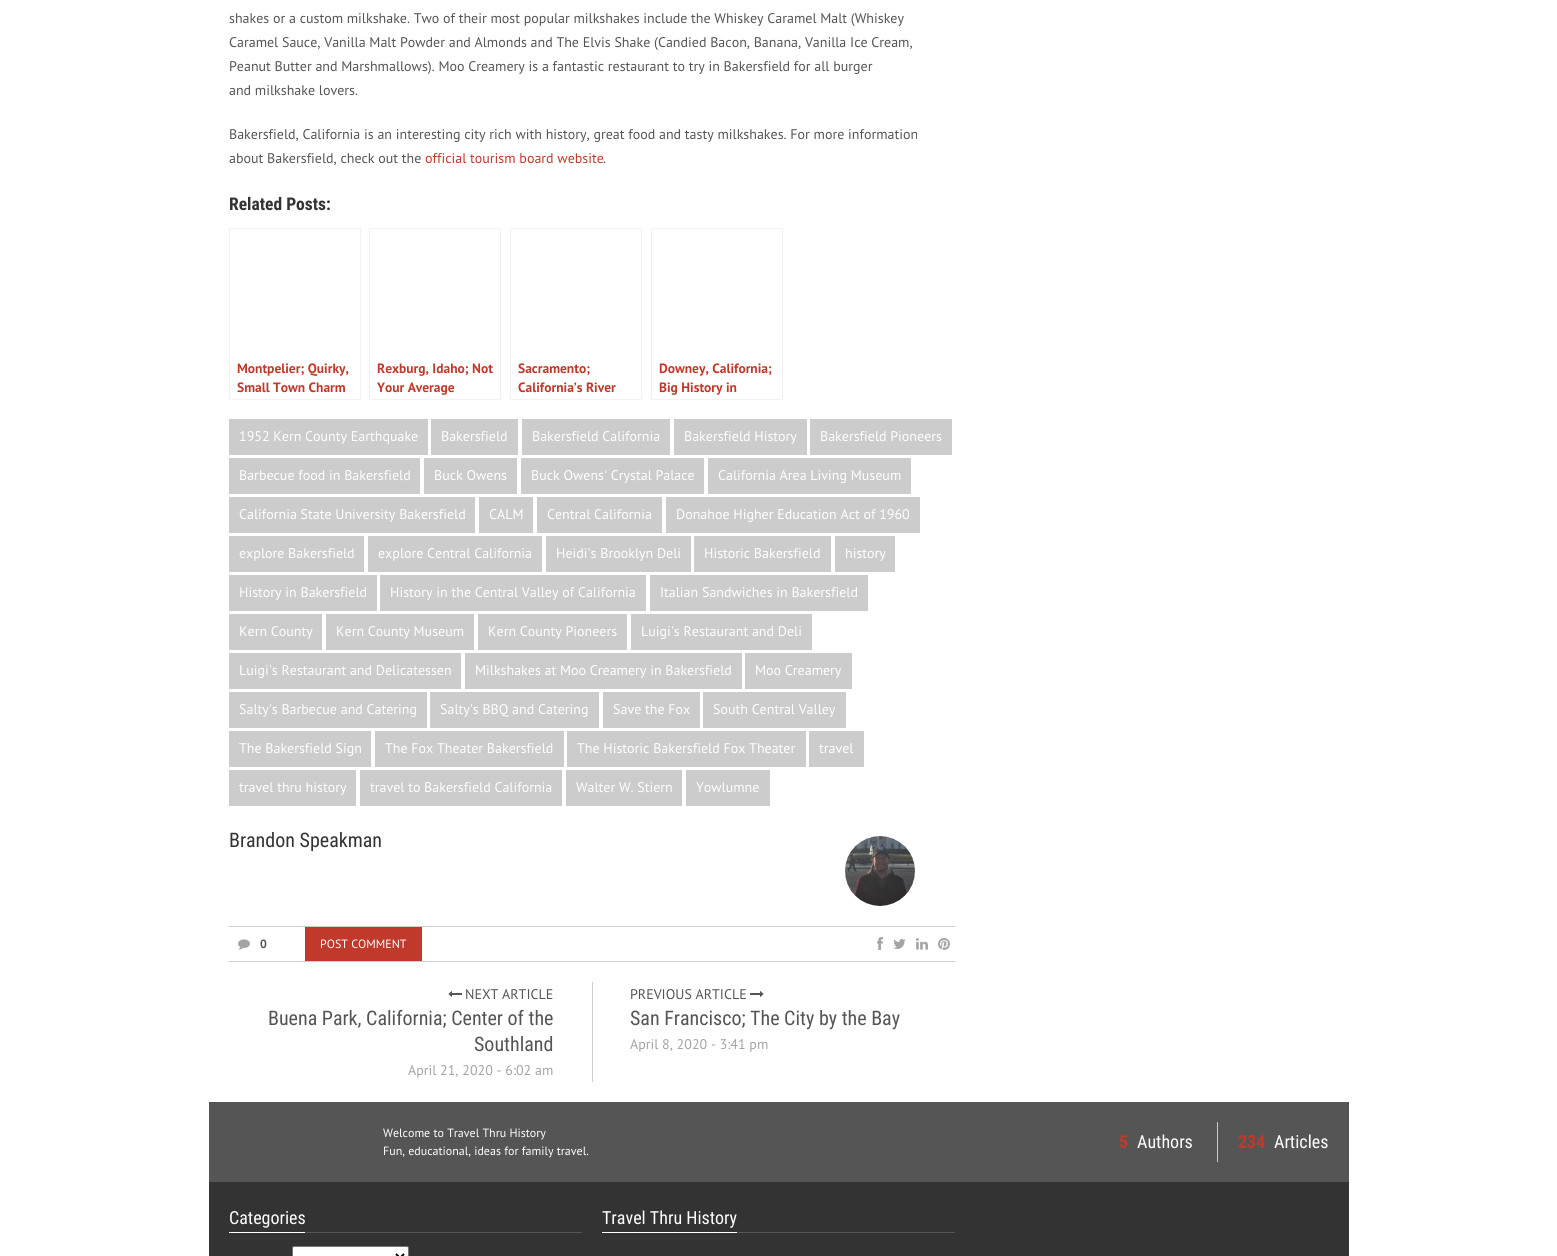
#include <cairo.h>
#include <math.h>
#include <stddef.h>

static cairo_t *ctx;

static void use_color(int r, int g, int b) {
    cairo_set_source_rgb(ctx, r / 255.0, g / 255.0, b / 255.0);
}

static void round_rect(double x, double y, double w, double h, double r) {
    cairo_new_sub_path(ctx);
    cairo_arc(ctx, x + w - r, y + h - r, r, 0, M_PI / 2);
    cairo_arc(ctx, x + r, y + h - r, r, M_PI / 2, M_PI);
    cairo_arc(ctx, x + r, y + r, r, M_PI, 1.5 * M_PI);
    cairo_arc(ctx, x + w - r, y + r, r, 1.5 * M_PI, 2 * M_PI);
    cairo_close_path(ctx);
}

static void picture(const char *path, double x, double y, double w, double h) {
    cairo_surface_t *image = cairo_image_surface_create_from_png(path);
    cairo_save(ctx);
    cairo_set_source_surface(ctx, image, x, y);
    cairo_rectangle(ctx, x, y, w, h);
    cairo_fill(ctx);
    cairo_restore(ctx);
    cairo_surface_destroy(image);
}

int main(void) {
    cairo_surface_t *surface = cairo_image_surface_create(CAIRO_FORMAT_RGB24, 1557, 1256);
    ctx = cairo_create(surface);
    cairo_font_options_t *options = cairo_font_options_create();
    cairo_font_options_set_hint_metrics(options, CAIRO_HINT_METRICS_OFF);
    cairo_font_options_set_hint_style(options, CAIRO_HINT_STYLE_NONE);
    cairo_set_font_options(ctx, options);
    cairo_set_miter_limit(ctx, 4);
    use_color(255, 255, 255);
    cairo_paint(ctx);
    cairo_select_font_face(ctx, "PT Sans", CAIRO_FONT_SLANT_NORMAL, CAIRO_FONT_WEIGHT_NORMAL);
    cairo_set_font_size(ctx, 14);
    use_color(85, 85, 85);
    cairo_move_to(ctx, 229, 23);
    cairo_show_text(ctx, "shakes or a custom milkshake. Two of their most popular milkshakes include the Whiskey Caramel Malt (Whiskey");
    cairo_move_to(ctx, 229, 47);
    cairo_show_text(ctx, "Caramel Sauce, Vanilla Malt Powder and Almonds and The Elvis Shake (Candied Bacon, Banana, Vanilla Ice Cream,");
    cairo_move_to(ctx, 229, 71);
    cairo_show_text(ctx, "Peanut Butter and Marshmallows). Moo Creamery is a fantastic restaurant to try in Bakersfield for all burger");
    cairo_move_to(ctx, 229, 95);
    cairo_show_text(ctx, "and milkshake lovers.");
    cairo_move_to(ctx, 229, 139);
    cairo_show_text(ctx, "Bakersfield, California is an interesting city rich with history, great food and tasty milkshakes. For more information");
    cairo_move_to(ctx, 229, 163);
    cairo_show_text(ctx, "about Bakersfield, check out the");
    use_color(192, 57, 43);
    cairo_move_to(ctx, 425, 163);
    cairo_show_text(ctx, "official tourism board website");
    use_color(85, 85, 85);
    cairo_move_to(ctx, 603, 163);
    cairo_show_text(ctx, ".");
    cairo_select_font_face(ctx, "Roboto Condensed", CAIRO_FONT_SLANT_NORMAL, CAIRO_FONT_WEIGHT_BOLD);
    cairo_set_font_size(ctx, 17.5);
    use_color(51, 51, 51);
    cairo_move_to(ctx, 229, 210);
    cairo_show_text(ctx, "Related Posts:");
    cairo_rectangle(ctx, 229.5, 228.5, 131, 171);
    use_color(242, 242, 242);
    cairo_set_line_width(ctx, 1);
    cairo_stroke(ctx);
    cairo_select_font_face(ctx, "PT Sans", CAIRO_FONT_SLANT_NORMAL, CAIRO_FONT_WEIGHT_BOLD);
    cairo_set_font_size(ctx, 13.5);
    use_color(192, 57, 43);
    cairo_move_to(ctx, 237, 373);
    cairo_show_text(ctx, "Montpelier; Quirky,");
    cairo_move_to(ctx, 237, 392);
    cairo_show_text(ctx, "Small Town Charm");
    cairo_rectangle(ctx, 369.5, 228.5, 131, 171);
    use_color(242, 242, 242);
    cairo_stroke(ctx);
    use_color(192, 57, 43);
    cairo_move_to(ctx, 377, 373);
    cairo_show_text(ctx, "Rexburg, Idaho; Not");
    cairo_move_to(ctx, 377, 392);
    cairo_show_text(ctx, "Your Average");
    cairo_rectangle(ctx, 510.5, 228.5, 131, 171);
    use_color(242, 242, 242);
    cairo_stroke(ctx);
    use_color(192, 57, 43);
    cairo_move_to(ctx, 518, 373);
    cairo_show_text(ctx, "Sacramento;");
    cairo_move_to(ctx, 518, 392);
    cairo_show_text(ctx, "California’s River");
    cairo_rectangle(ctx, 651.5, 228.5, 131, 171);
    use_color(242, 242, 242);
    cairo_stroke(ctx);
    use_color(192, 57, 43);
    cairo_move_to(ctx, 659, 373);
    cairo_show_text(ctx, "Downey, California;");
    cairo_move_to(ctx, 659, 392);
    cairo_show_text(ctx, "Big History in");
    use_color(204, 204, 204);
    cairo_rectangle(ctx, 229, 419, 199, 36);
    cairo_fill(ctx);
    cairo_select_font_face(ctx, "PT Sans", CAIRO_FONT_SLANT_NORMAL, CAIRO_FONT_WEIGHT_NORMAL);
    cairo_set_font_size(ctx, 14);
    use_color(255, 255, 255);
    cairo_move_to(ctx, 239, 441);
    cairo_show_text(ctx, "1952 Kern County Earthquake");
    use_color(204, 204, 204);
    cairo_rectangle(ctx, 431, 419, 87, 36);
    cairo_fill(ctx);
    use_color(255, 255, 255);
    cairo_move_to(ctx, 441, 441);
    cairo_show_text(ctx, "Bakersfield");
    use_color(204, 204, 204);
    cairo_rectangle(ctx, 522, 419, 148, 36);
    cairo_fill(ctx);
    use_color(255, 255, 255);
    cairo_move_to(ctx, 532, 441);
    cairo_show_text(ctx, "Bakersfield California");
    use_color(204, 204, 204);
    cairo_rectangle(ctx, 674, 419, 133, 36);
    cairo_fill(ctx);
    use_color(255, 255, 255);
    cairo_move_to(ctx, 684, 441);
    cairo_show_text(ctx, "Bakersfield History");
    use_color(204, 204, 204);
    cairo_rectangle(ctx, 810, 419, 142, 36);
    cairo_fill(ctx);
    use_color(255, 255, 255);
    cairo_move_to(ctx, 820, 441);
    cairo_show_text(ctx, "Bakersfield Pioneers");
    use_color(204, 204, 204);
    cairo_rectangle(ctx, 229, 458, 191, 36);
    cairo_fill(ctx);
    use_color(255, 255, 255);
    cairo_move_to(ctx, 239, 480);
    cairo_show_text(ctx, "Barbecue food in Bakersfield");
    use_color(204, 204, 204);
    cairo_rectangle(ctx, 424, 458, 93, 36);
    cairo_fill(ctx);
    use_color(255, 255, 255);
    cairo_move_to(ctx, 434, 480);
    cairo_show_text(ctx, "Buck Owens");
    use_color(204, 204, 204);
    cairo_rectangle(ctx, 521, 458, 183, 36);
    cairo_fill(ctx);
    use_color(255, 255, 255);
    cairo_move_to(ctx, 531, 480);
    cairo_show_text(ctx, "Buck Owens' Crystal Palace");
    use_color(204, 204, 204);
    cairo_rectangle(ctx, 708, 458, 203, 36);
    cairo_fill(ctx);
    use_color(255, 255, 255);
    cairo_move_to(ctx, 718, 480);
    cairo_show_text(ctx, "California Area Living Museum");
    use_color(204, 204, 204);
    cairo_rectangle(ctx, 229, 497, 246, 36);
    cairo_fill(ctx);
    use_color(255, 255, 255);
    cairo_move_to(ctx, 239, 519);
    cairo_show_text(ctx, "California State University Bakersfield");
    use_color(204, 204, 204);
    cairo_rectangle(ctx, 479, 497, 54, 36);
    cairo_fill(ctx);
    use_color(255, 255, 255);
    cairo_move_to(ctx, 489, 519);
    cairo_show_text(ctx, "CALM");
    use_color(204, 204, 204);
    cairo_rectangle(ctx, 537, 497, 125, 36);
    cairo_fill(ctx);
    use_color(255, 255, 255);
    cairo_move_to(ctx, 547, 519);
    cairo_show_text(ctx, "Central California");
    use_color(204, 204, 204);
    cairo_rectangle(ctx, 666, 497, 254, 36);
    cairo_fill(ctx);
    use_color(255, 255, 255);
    cairo_move_to(ctx, 676, 519);
    cairo_show_text(ctx, "Donahoe Higher Education Act of 1960");
    use_color(204, 204, 204);
    cairo_rectangle(ctx, 229, 536, 135, 36);
    cairo_fill(ctx);
    use_color(255, 255, 255);
    cairo_move_to(ctx, 239, 558);
    cairo_show_text(ctx, "explore Bakersfield");
    use_color(204, 204, 204);
    cairo_rectangle(ctx, 368, 536, 174, 36);
    cairo_fill(ctx);
    use_color(255, 255, 255);
    cairo_move_to(ctx, 378, 558);
    cairo_show_text(ctx, "explore Central California");
    use_color(204, 204, 204);
    cairo_rectangle(ctx, 546, 536, 145, 36);
    cairo_fill(ctx);
    use_color(255, 255, 255);
    cairo_move_to(ctx, 556, 558);
    cairo_show_text(ctx, "Heidi's Brooklyn Deli");
    use_color(204, 204, 204);
    cairo_rectangle(ctx, 694, 536, 137, 36);
    cairo_fill(ctx);
    use_color(255, 255, 255);
    cairo_move_to(ctx, 704, 558);
    cairo_show_text(ctx, "Historic Bakersfield");
    use_color(204, 204, 204);
    cairo_rectangle(ctx, 835, 536, 60, 36);
    cairo_fill(ctx);
    use_color(255, 255, 255);
    cairo_move_to(ctx, 845, 558);
    cairo_show_text(ctx, "history");
    use_color(204, 204, 204);
    cairo_rectangle(ctx, 229, 575, 148, 36);
    cairo_fill(ctx);
    use_color(255, 255, 255);
    cairo_move_to(ctx, 239, 597);
    cairo_show_text(ctx, "History in Bakersfield");
    use_color(204, 204, 204);
    cairo_rectangle(ctx, 380, 575, 266, 36);
    cairo_fill(ctx);
    use_color(255, 255, 255);
    cairo_move_to(ctx, 390, 597);
    cairo_show_text(ctx, "History in the Central Valley of California");
    use_color(204, 204, 204);
    cairo_rectangle(ctx, 650, 575, 218, 36);
    cairo_fill(ctx);
    use_color(255, 255, 255);
    cairo_move_to(ctx, 660, 597);
    cairo_show_text(ctx, "Italian Sandwiches in Bakersfield");
    use_color(204, 204, 204);
    cairo_rectangle(ctx, 229, 614, 93, 36);
    cairo_fill(ctx);
    use_color(255, 255, 255);
    cairo_move_to(ctx, 239, 636);
    cairo_show_text(ctx, "Kern County");
    use_color(204, 204, 204);
    cairo_rectangle(ctx, 326, 614, 148, 36);
    cairo_fill(ctx);
    use_color(255, 255, 255);
    cairo_move_to(ctx, 336, 636);
    cairo_show_text(ctx, "Kern County Museum");
    use_color(204, 204, 204);
    cairo_rectangle(ctx, 478, 614, 149, 36);
    cairo_fill(ctx);
    use_color(255, 255, 255);
    cairo_move_to(ctx, 488, 636);
    cairo_show_text(ctx, "Kern County Pioneers");
    use_color(204, 204, 204);
    cairo_rectangle(ctx, 631, 614, 181, 36);
    cairo_fill(ctx);
    use_color(255, 255, 255);
    cairo_move_to(ctx, 641, 636);
    cairo_show_text(ctx, "Luigi's Restaurant and Deli");
    use_color(204, 204, 204);
    cairo_rectangle(ctx, 229, 653, 232, 36);
    cairo_fill(ctx);
    use_color(255, 255, 255);
    cairo_move_to(ctx, 239, 675);
    cairo_show_text(ctx, "Luigi's Restaurant and Delicatessen");
    use_color(204, 204, 204);
    cairo_rectangle(ctx, 465, 653, 277, 36);
    cairo_fill(ctx);
    use_color(255, 255, 255);
    cairo_move_to(ctx, 475, 675);
    cairo_show_text(ctx, "Milkshakes at Moo Creamery in Bakersfield");
    use_color(204, 204, 204);
    cairo_rectangle(ctx, 745, 653, 107, 36);
    cairo_fill(ctx);
    use_color(255, 255, 255);
    cairo_move_to(ctx, 755, 675);
    cairo_show_text(ctx, "Moo Creamery");
    use_color(204, 204, 204);
    cairo_rectangle(ctx, 229, 692, 198, 36);
    cairo_fill(ctx);
    use_color(255, 255, 255);
    cairo_move_to(ctx, 239, 714);
    cairo_show_text(ctx, "Salty's Barbecue and Catering");
    use_color(204, 204, 204);
    cairo_rectangle(ctx, 430, 692, 169, 36);
    cairo_fill(ctx);
    use_color(255, 255, 255);
    cairo_move_to(ctx, 440, 714);
    cairo_show_text(ctx, "Salty's BBQ and Catering");
    use_color(204, 204, 204);
    cairo_rectangle(ctx, 603, 692, 97, 36);
    cairo_fill(ctx);
    use_color(255, 255, 255);
    cairo_move_to(ctx, 613, 714);
    cairo_show_text(ctx, "Save the Fox");
    use_color(204, 204, 204);
    cairo_rectangle(ctx, 703, 692, 143, 36);
    cairo_fill(ctx);
    use_color(255, 255, 255);
    cairo_move_to(ctx, 713, 714);
    cairo_show_text(ctx, "South Central Valley");
    use_color(204, 204, 204);
    cairo_rectangle(ctx, 229, 731, 142, 36);
    cairo_fill(ctx);
    use_color(255, 255, 255);
    cairo_move_to(ctx, 239, 753);
    cairo_show_text(ctx, "The Bakersfield Sign");
    use_color(204, 204, 204);
    cairo_rectangle(ctx, 375, 731, 189, 36);
    cairo_fill(ctx);
    use_color(255, 255, 255);
    cairo_move_to(ctx, 385, 753);
    cairo_show_text(ctx, "The Fox Theater Bakersfield");
    use_color(204, 204, 204);
    cairo_rectangle(ctx, 567, 731, 239, 36);
    cairo_fill(ctx);
    use_color(255, 255, 255);
    cairo_move_to(ctx, 577, 753);
    cairo_show_text(ctx, "The Historic Bakersfield Fox Theater");
    use_color(204, 204, 204);
    cairo_rectangle(ctx, 809, 731, 55, 36);
    cairo_fill(ctx);
    use_color(255, 255, 255);
    cairo_move_to(ctx, 819, 753);
    cairo_show_text(ctx, "travel");
    use_color(204, 204, 204);
    cairo_rectangle(ctx, 229, 770, 127, 36);
    cairo_fill(ctx);
    use_color(255, 255, 255);
    cairo_move_to(ctx, 239, 792);
    cairo_show_text(ctx, "travel thru history");
    use_color(204, 204, 204);
    cairo_rectangle(ctx, 360, 770, 202, 36);
    cairo_fill(ctx);
    use_color(255, 255, 255);
    cairo_move_to(ctx, 370, 792);
    cairo_show_text(ctx, "travel to Bakersfield California");
    use_color(204, 204, 204);
    cairo_rectangle(ctx, 566, 770, 116, 36);
    cairo_fill(ctx);
    use_color(255, 255, 255);
    cairo_move_to(ctx, 576, 792);
    cairo_show_text(ctx, "Walter W. Stiern");
    use_color(204, 204, 204);
    cairo_rectangle(ctx, 686, 770, 84, 36);
    cairo_fill(ctx);
    use_color(255, 255, 255);
    cairo_move_to(ctx, 696, 792);
    cairo_show_text(ctx, "Yowlumne");
    cairo_select_font_face(ctx, "Roboto Condensed", CAIRO_FONT_SLANT_NORMAL, CAIRO_FONT_WEIGHT_NORMAL);
    cairo_set_font_size(ctx, 20);
    use_color(51, 51, 51);
    cairo_move_to(ctx, 229, 847);
    cairo_show_text(ctx, "Brandon Speakman");
    picture("img1.png", 845, 836, 70, 70);
    use_color(204, 204, 204);
    cairo_rectangle(ctx, 229, 926, 726, 1);
    cairo_fill(ctx);
    picture("img2.png", 238, 939, 12, 11);
    cairo_select_font_face(ctx, "PT Sans", CAIRO_FONT_SLANT_NORMAL, CAIRO_FONT_WEIGHT_BOLD);
    cairo_set_font_size(ctx, 12);
    use_color(85, 85, 85);
    cairo_move_to(ctx, 260, 948);
    cairo_show_text(ctx, "0");
    use_color(192, 57, 43);
    cairo_rectangle(ctx, 305, 927, 117, 34);
    cairo_fill(ctx);
    cairo_select_font_face(ctx, "PT Sans", CAIRO_FONT_SLANT_NORMAL, CAIRO_FONT_WEIGHT_NORMAL);
    use_color(255, 255, 255);
    cairo_move_to(ctx, 320, 948);
    cairo_show_text(ctx, "POST COMMENT");
    picture("img3.png", 877, 937, 6, 13);
    picture("img4.png", 893, 939, 13, 10);
    picture("img5.png", 916, 938, 12, 12);
    picture("img6.png", 938, 938, 12, 12);
    use_color(204, 204, 204);
    cairo_rectangle(ctx, 229, 961, 726, 1);
    cairo_fill(ctx);
    picture("img7.png", 448, 991, 14, 6);
    cairo_set_font_size(ctx, 14);
    use_color(85, 85, 85);
    cairo_move_to(ctx, 465, 999);
    cairo_show_text(ctx, "NEXT ARTICLE");
    cairo_select_font_face(ctx, "Roboto Condensed", CAIRO_FONT_SLANT_NORMAL, CAIRO_FONT_WEIGHT_NORMAL);
    cairo_set_font_size(ctx, 20);
    cairo_move_to(ctx, 268, 1025);
    cairo_show_text(ctx, "Buena Park, California; Center of the");
    cairo_move_to(ctx, 474, 1051);
    cairo_show_text(ctx, "Southland");
    cairo_select_font_face(ctx, "PT Sans", CAIRO_FONT_SLANT_NORMAL, CAIRO_FONT_WEIGHT_NORMAL);
    cairo_set_font_size(ctx, 14);
    use_color(163, 164, 165);
    cairo_move_to(ctx, 408, 1075);
    cairo_show_text(ctx, "April 21, 2020 - 6:02 am");
    use_color(204, 204, 204);
    cairo_rectangle(ctx, 592, 982, 1, 100);
    cairo_fill(ctx);
    use_color(85, 85, 85);
    cairo_move_to(ctx, 630, 999);
    cairo_show_text(ctx, "PREVIOUS ARTICLE");
    picture("img8.png", 750, 991, 14, 6);
    cairo_select_font_face(ctx, "Roboto Condensed", CAIRO_FONT_SLANT_NORMAL, CAIRO_FONT_WEIGHT_NORMAL);
    cairo_set_font_size(ctx, 20);
    cairo_move_to(ctx, 630, 1025);
    cairo_show_text(ctx, "San Francisco; The City by the Bay");
    cairo_select_font_face(ctx, "PT Sans", CAIRO_FONT_SLANT_NORMAL, CAIRO_FONT_WEIGHT_NORMAL);
    cairo_set_font_size(ctx, 14);
    use_color(163, 164, 165);
    cairo_move_to(ctx, 630, 1049);
    cairo_show_text(ctx, "April 8, 2020 - 3:41 pm");
    use_color(51, 51, 51);
    cairo_rectangle(ctx, 209, 1182, 1140, 74);
    cairo_fill(ctx);
    use_color(85, 85, 85);
    cairo_rectangle(ctx, 209, 1102, 1140, 80);
    cairo_fill(ctx);
    cairo_set_font_size(ctx, 12);
    use_color(255, 255, 255);
    cairo_move_to(ctx, 383, 1137);
    cairo_show_text(ctx, "Welcome to Travel Thru History");
    cairo_move_to(ctx, 383, 1155);
    cairo_show_text(ctx, "Fun, educational, ideas for family travel.");
    cairo_select_font_face(ctx, "Roboto Condensed", CAIRO_FONT_SLANT_NORMAL, CAIRO_FONT_WEIGHT_BOLD);
    cairo_set_font_size(ctx, 18);
    use_color(192, 57, 43);
    cairo_move_to(ctx, 1119, 1148);
    cairo_show_text(ctx, "5");
    cairo_select_font_face(ctx, "Roboto Condensed", CAIRO_FONT_SLANT_NORMAL, CAIRO_FONT_WEIGHT_NORMAL);
    use_color(255, 255, 255);
    cairo_move_to(ctx, 1137, 1148);
    cairo_show_text(ctx, "Authors");
    use_color(204, 204, 204);
    cairo_rectangle(ctx, 1217, 1122, 1, 40);
    cairo_fill(ctx);
    cairo_select_font_face(ctx, "Roboto Condensed", CAIRO_FONT_SLANT_NORMAL, CAIRO_FONT_WEIGHT_BOLD);
    use_color(192, 57, 43);
    cairo_move_to(ctx, 1238, 1148);
    cairo_show_text(ctx, "234");
    cairo_select_font_face(ctx, "Roboto Condensed", CAIRO_FONT_SLANT_NORMAL, CAIRO_FONT_WEIGHT_NORMAL);
    use_color(255, 255, 255);
    cairo_move_to(ctx, 1274, 1148);
    cairo_show_text(ctx, "Articles");
    cairo_rectangle(ctx, 229, 1232, 76, 1);
    cairo_fill(ctx);
    cairo_move_to(ctx, 229, 1224);
    cairo_show_text(ctx, "Categories");
    use_color(85, 85, 85);
    cairo_rectangle(ctx, 305, 1232, 277, 1);
    cairo_fill(ctx);
    use_color(255, 255, 255);
    round_rect(292.5, 1246.5, 116, 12, 1.5);
    cairo_fill_preserve(ctx);
    use_color(118, 118, 118);
    cairo_stroke(ctx);
    cairo_new_path(ctx);
    cairo_move_to(ctx, 396, 1254);
    cairo_line_to(ctx, 400, 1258);
    cairo_line_to(ctx, 404, 1254);
    use_color(0, 0, 0);
    cairo_set_line_width(ctx, 2);
    cairo_stroke(ctx);
    use_color(255, 255, 255);
    cairo_rectangle(ctx, 602, 1232, 135, 1);
    cairo_fill(ctx);
    cairo_move_to(ctx, 602, 1224);
    cairo_show_text(ctx, "Travel Thru History");
    use_color(85, 85, 85);
    cairo_rectangle(ctx, 737, 1232, 218, 1);
    cairo_fill(ctx);
    cairo_surface_write_to_png(surface, "result.png");
    cairo_font_options_destroy(options);
    cairo_destroy(ctx);
    cairo_surface_destroy(surface);
    return 0;
}
